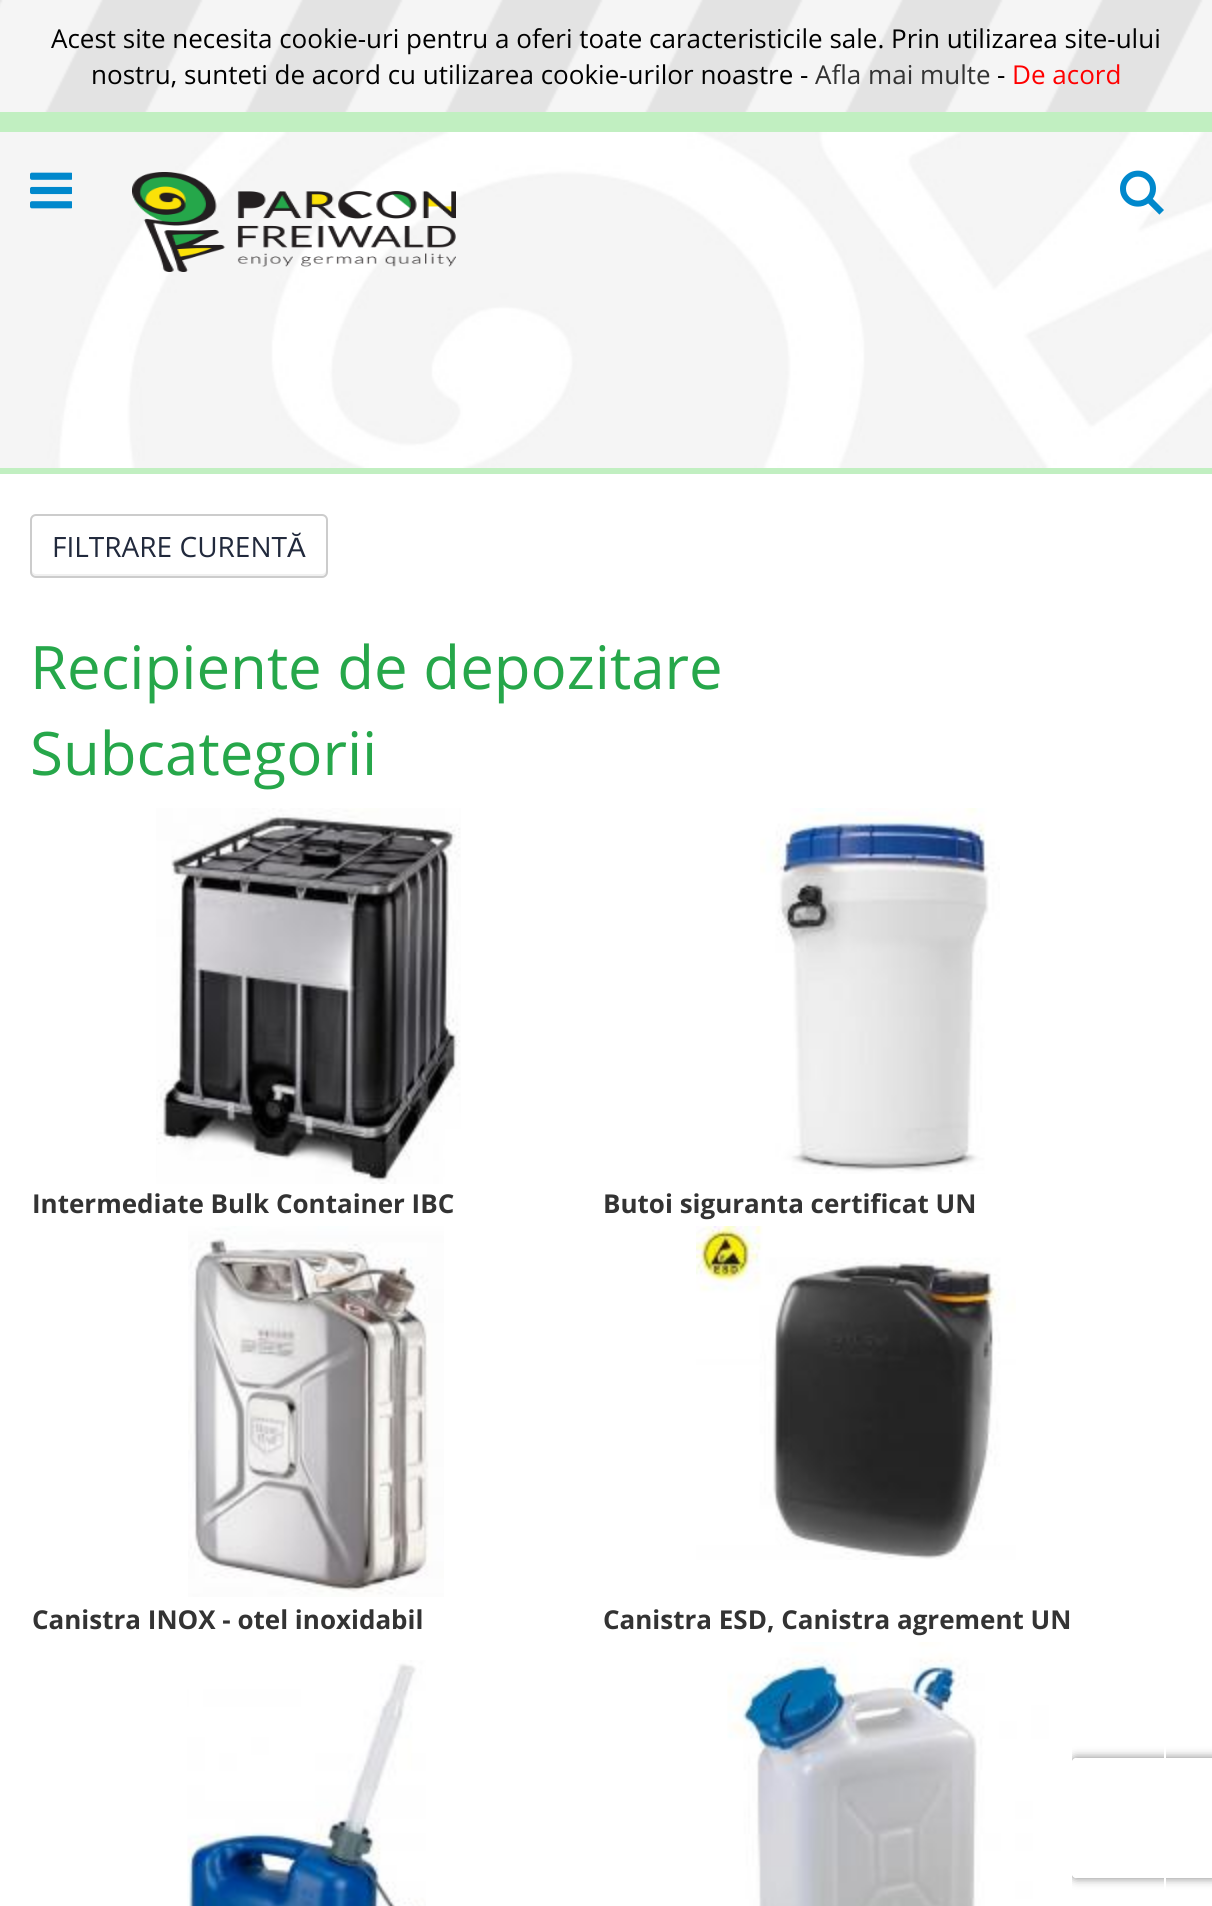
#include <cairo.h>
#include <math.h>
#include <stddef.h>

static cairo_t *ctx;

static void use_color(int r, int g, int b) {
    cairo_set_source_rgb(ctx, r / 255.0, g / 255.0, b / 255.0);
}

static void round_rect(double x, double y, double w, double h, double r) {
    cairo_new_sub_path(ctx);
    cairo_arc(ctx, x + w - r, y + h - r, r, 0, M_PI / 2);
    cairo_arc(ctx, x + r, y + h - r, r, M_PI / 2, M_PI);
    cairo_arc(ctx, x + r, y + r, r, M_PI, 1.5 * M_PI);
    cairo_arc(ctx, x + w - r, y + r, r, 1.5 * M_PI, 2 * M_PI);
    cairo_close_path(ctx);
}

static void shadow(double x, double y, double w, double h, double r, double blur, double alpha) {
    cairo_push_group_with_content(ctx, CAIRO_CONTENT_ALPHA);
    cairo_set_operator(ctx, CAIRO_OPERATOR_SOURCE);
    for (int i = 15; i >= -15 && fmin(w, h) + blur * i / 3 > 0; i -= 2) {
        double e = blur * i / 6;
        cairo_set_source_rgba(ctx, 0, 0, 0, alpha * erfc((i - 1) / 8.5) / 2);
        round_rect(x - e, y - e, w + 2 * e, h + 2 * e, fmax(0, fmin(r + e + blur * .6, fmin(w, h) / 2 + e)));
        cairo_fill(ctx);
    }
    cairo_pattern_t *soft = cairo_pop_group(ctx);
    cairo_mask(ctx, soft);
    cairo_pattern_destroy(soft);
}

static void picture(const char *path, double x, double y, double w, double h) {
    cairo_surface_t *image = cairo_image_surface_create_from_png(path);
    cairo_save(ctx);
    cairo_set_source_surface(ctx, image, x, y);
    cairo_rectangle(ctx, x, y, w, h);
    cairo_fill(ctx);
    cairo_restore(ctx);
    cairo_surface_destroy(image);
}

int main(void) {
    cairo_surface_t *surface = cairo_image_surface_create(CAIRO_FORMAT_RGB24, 1212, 1906);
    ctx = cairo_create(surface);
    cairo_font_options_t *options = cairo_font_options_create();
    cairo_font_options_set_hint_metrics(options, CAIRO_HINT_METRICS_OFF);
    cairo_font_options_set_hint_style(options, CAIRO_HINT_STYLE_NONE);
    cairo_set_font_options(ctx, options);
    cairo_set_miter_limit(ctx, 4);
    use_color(193, 239, 193);
    cairo_paint(ctx);
    picture("img1.png", 0, 0, 1212, 112);
    cairo_select_font_face(ctx, "Open Sans", CAIRO_FONT_SLANT_NORMAL, CAIRO_FONT_WEIGHT_NORMAL);
    cairo_set_font_size(ctx, 26);
    use_color(0, 0, 0);
    cairo_move_to(ctx, 51, 48);
    cairo_show_text(ctx, "Acest site necesita cookie-uri pentru a oferi toate caracteristicile sale. Prin utilizarea site-ului");
    cairo_move_to(ctx, 91, 84);
    cairo_show_text(ctx, "nostru, sunteti de acord cu utilizarea cookie-urilor noastre -");
    use_color(51, 51, 51);
    cairo_move_to(ctx, 815, 84);
    cairo_show_text(ctx, "Afla mai multe");
    use_color(0, 0, 0);
    cairo_move_to(ctx, 997, 84);
    cairo_show_text(ctx, "-");
    use_color(255, 0, 0);
    cairo_move_to(ctx, 1012, 84);
    cairo_show_text(ctx, "De acord");
    picture("img2.png", 0, 132, 1212, 336);
    picture("img3.png", 30, 172, 42, 37);
    picture("img4.png", 132, 172, 324, 100);
    picture("img5.png", 1120, 170, 44, 45);
    use_color(255, 255, 255);
    cairo_rectangle(ctx, 0, 474, 1212, 1432);
    cairo_fill(ctx);
    use_color(240, 240, 240);
    cairo_new_path(ctx);
    cairo_move_to(ctx, 32, 570);
    cairo_line_to(ctx, 32, 572);
    cairo_curve_to(ctx, 32, 574, 34, 576, 36, 576);
    cairo_line_to(ctx, 322, 576);
    cairo_curve_to(ctx, 324, 576, 326, 574, 326, 572);
    cairo_line_to(ctx, 326, 570);
    cairo_curve_to(ctx, 326, 572, 324, 574, 322, 574);
    cairo_line_to(ctx, 36, 574);
    cairo_curve_to(ctx, 34, 574, 32, 572, 32, 570);
    cairo_close_path(ctx);
    cairo_fill(ctx);
    round_rect(31, 515, 296, 62, 5);
    use_color(204, 204, 204);
    cairo_stroke(ctx);
    cairo_set_font_size(ctx, 28);
    use_color(33, 41, 60);
    cairo_move_to(ctx, 52, 557);
    cairo_show_text(ctx, "FILTRARE CURENT");
    cairo_select_font_face(ctx, "Liberation Sans", CAIRO_FONT_SLANT_NORMAL, CAIRO_FONT_WEIGHT_NORMAL);
    cairo_move_to(ctx, 287, 557);
    cairo_show_text(ctx, "Ă");
    cairo_select_font_face(ctx, "Open Sans", CAIRO_FONT_SLANT_NORMAL, CAIRO_FONT_WEIGHT_NORMAL);
    cairo_set_font_size(ctx, 60);
    use_color(38, 167, 74);
    cairo_move_to(ctx, 30, 689);
    cairo_show_text(ctx, "Recipiente de depozitare");
    cairo_move_to(ctx, 30, 775);
    cairo_show_text(ctx, "Subcategorii");
    picture("img6.png", 156, 808, 305, 376);
    cairo_select_font_face(ctx, "Open Sans", CAIRO_FONT_SLANT_NORMAL, CAIRO_FONT_WEIGHT_BOLD);
    cairo_set_font_size(ctx, 26);
    use_color(51, 51, 51);
    cairo_move_to(ctx, 32, 1213);
    cairo_show_text(ctx, "Intermediate Bulk Container IBC");
    picture("img7.png", 760, 808, 240, 366);
    cairo_move_to(ctx, 603, 1213);
    cairo_show_text(ctx, "Butoi siguranta certificat UN");
    picture("img8.png", 188, 1226, 256, 371);
    cairo_move_to(ctx, 32, 1629);
    cairo_show_text(ctx, "Canistra INOX - otel inoxidabil");
    picture("img9.png", 696, 1226, 320, 334);
    cairo_move_to(ctx, 603, 1629);
    cairo_show_text(ctx, "Canistra ESD, Canistra agrement UN");
    picture("img10.png", 187, 1660, 239, 246);
    cairo_save(ctx);
    cairo_set_fill_rule(ctx, CAIRO_FILL_RULE_EVEN_ODD);
    cairo_new_path(ctx);
    cairo_move_to(ctx, 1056, 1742);
    cairo_line_to(ctx, 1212, 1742);
    cairo_line_to(ctx, 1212, 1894);
    cairo_line_to(ctx, 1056, 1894);
    cairo_close_path(ctx);
    cairo_move_to(ctx, 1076, 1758);
    cairo_line_to(ctx, 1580, 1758);
    cairo_curve_to(ctx, 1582, 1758, 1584, 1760, 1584, 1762);
    cairo_line_to(ctx, 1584, 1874);
    cairo_curve_to(ctx, 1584, 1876, 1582, 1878, 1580, 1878);
    cairo_line_to(ctx, 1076, 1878);
    cairo_curve_to(ctx, 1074, 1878, 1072, 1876, 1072, 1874);
    cairo_line_to(ctx, 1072, 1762);
    cairo_curve_to(ctx, 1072, 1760, 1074, 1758, 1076, 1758);
    cairo_close_path(ctx);
    cairo_clip(ctx);
    use_color(128, 128, 128);
    shadow(1072, 1758, 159, 120, 4, 5, 1);
    cairo_restore(ctx);
    cairo_rectangle(ctx, 603, 1641, 562, 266);
    use_color(255, 255, 255);
    cairo_stroke(ctx);
    picture("img11.png", 727, 1642, 345, 264);
    cairo_surface_write_to_png(surface, "result.png");
    cairo_font_options_destroy(options);
    cairo_destroy(ctx);
    cairo_surface_destroy(surface);
    return 0;
}
